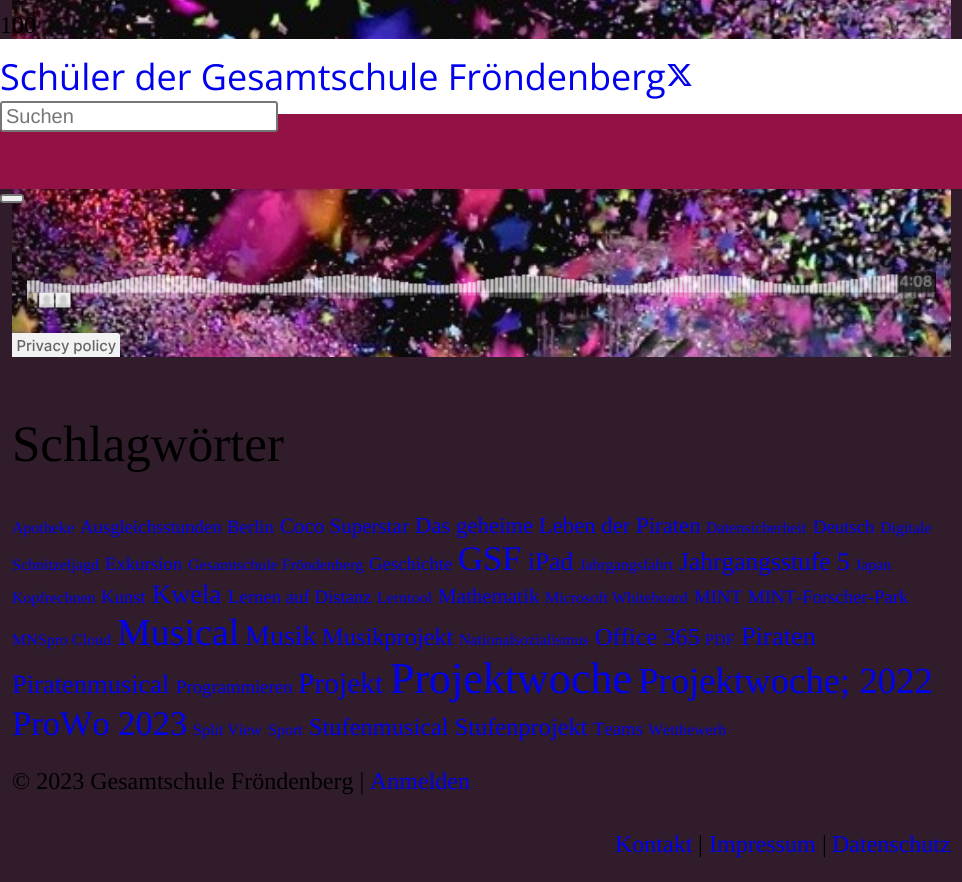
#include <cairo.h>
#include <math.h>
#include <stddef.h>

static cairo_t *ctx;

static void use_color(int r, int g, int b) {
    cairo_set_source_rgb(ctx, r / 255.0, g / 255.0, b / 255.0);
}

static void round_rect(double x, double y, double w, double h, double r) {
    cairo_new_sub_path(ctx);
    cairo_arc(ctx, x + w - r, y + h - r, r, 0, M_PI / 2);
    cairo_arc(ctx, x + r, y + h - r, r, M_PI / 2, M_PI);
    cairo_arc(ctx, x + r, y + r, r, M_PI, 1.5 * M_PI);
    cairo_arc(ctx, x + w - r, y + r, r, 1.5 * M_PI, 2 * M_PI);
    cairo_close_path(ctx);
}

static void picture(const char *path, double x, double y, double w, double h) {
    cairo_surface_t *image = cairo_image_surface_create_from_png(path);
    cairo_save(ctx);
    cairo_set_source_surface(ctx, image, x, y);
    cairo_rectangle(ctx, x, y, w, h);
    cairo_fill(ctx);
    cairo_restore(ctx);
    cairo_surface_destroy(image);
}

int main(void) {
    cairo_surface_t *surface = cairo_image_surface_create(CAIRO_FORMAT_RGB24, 962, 882);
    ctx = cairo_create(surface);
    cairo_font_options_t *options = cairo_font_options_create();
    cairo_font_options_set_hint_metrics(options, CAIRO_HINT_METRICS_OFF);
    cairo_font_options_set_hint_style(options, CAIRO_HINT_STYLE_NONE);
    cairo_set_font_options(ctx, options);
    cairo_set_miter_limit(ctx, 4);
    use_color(48, 28, 42);
    cairo_paint(ctx);
    picture("img2.png", 12, 0, 939, 357);
    cairo_select_font_face(ctx, "Liberation Serif", CAIRO_FONT_SLANT_NORMAL, CAIRO_FONT_WEIGHT_NORMAL);
    cairo_set_font_size(ctx, 24);
    use_color(0, 0, 0);
    cairo_move_to(ctx, 0, 33);
    cairo_show_text(ctx, "100");
    use_color(255, 255, 255);
    cairo_rectangle(ctx, 0, 39, 962, 75);
    cairo_fill(ctx);
    cairo_select_font_face(ctx, "Open Sans", CAIRO_FONT_SLANT_NORMAL, CAIRO_FONT_WEIGHT_NORMAL);
    cairo_set_font_size(ctx, 36);
    use_color(0, 0, 238);
    cairo_move_to(ctx, 0, 90);
    cairo_show_text(ctx, "Schüler der Gesamtschule Fröndenberg");
    picture("img1.png", 667, 64, 25, 22);
    cairo_set_source_rgba(ctx, 0, 0, 0, 0.08);
    cairo_rectangle(ctx, 0, 189, 962, 2);
    cairo_fill(ctx);
    use_color(146, 18, 69);
    cairo_rectangle(ctx, 0, 114, 962, 75);
    cairo_fill(ctx);
    use_color(255, 255, 255);
    round_rect(1, 102, 276, 29, 2);
    cairo_fill_preserve(ctx);
    use_color(118, 118, 118);
    cairo_stroke(ctx);
    cairo_select_font_face(ctx, "Liberation Sans", CAIRO_FONT_SLANT_NORMAL, CAIRO_FONT_WEIGHT_NORMAL);
    cairo_set_font_size(ctx, 20);
    use_color(117, 117, 117);
    cairo_move_to(ctx, 6, 123);
    cairo_show_text(ctx, "Suchen");
    use_color(239, 239, 239);
    round_rect(1, 195, 22, 7, 2);
    cairo_fill_preserve(ctx);
    use_color(118, 118, 118);
    cairo_stroke(ctx);
    cairo_select_font_face(ctx, "Liberation Serif", CAIRO_FONT_SLANT_NORMAL, CAIRO_FONT_WEIGHT_NORMAL);
    cairo_set_font_size(ctx, 51);
    use_color(0, 0, 0);
    cairo_move_to(ctx, 12, 461);
    cairo_show_text(ctx, "Schlagwörter");
    cairo_set_font_size(ctx, 16);
    use_color(0, 0, 238);
    cairo_move_to(ctx, 12, 533);
    cairo_show_text(ctx, "Apotheke");
    cairo_set_font_size(ctx, 18.75);
    cairo_move_to(ctx, 80, 533);
    cairo_show_text(ctx, "Ausgleichsstunden");
    cairo_move_to(ctx, 227, 533);
    cairo_show_text(ctx, "Berlin");
    cairo_set_font_size(ctx, 21);
    cairo_move_to(ctx, 280, 533);
    cairo_show_text(ctx, "Coco Superstar");
    cairo_set_font_size(ctx, 22.75);
    cairo_move_to(ctx, 415, 533);
    cairo_show_text(ctx, "Das geheime Leben der Piraten");
    cairo_set_font_size(ctx, 16);
    cairo_move_to(ctx, 706, 533);
    cairo_show_text(ctx, "Datensicherheit");
    cairo_set_font_size(ctx, 18.75);
    cairo_move_to(ctx, 813, 533);
    cairo_show_text(ctx, "Deutsch");
    cairo_set_font_size(ctx, 16);
    cairo_move_to(ctx, 880, 533);
    cairo_show_text(ctx, "Digitale");
    cairo_move_to(ctx, 12, 570);
    cairo_show_text(ctx, "Schnitzeljagd");
    cairo_set_font_size(ctx, 18.75);
    cairo_move_to(ctx, 105, 570);
    cairo_show_text(ctx, "Exkursion");
    cairo_set_font_size(ctx, 16);
    cairo_move_to(ctx, 188, 570);
    cairo_show_text(ctx, "Gesamtschule Fröndenberg");
    cairo_set_font_size(ctx, 18.75);
    cairo_move_to(ctx, 369, 570);
    cairo_show_text(ctx, "Geschichte");
    cairo_set_font_size(ctx, 34.5);
    cairo_move_to(ctx, 458, 570);
    cairo_show_text(ctx, "GSF");
    cairo_set_font_size(ctx, 25.5);
    cairo_move_to(ctx, 528, 570);
    cairo_show_text(ctx, "iPad");
    cairo_set_font_size(ctx, 16);
    cairo_move_to(ctx, 579, 570);
    cairo_show_text(ctx, "Jahrgangsfahrt");
    cairo_set_font_size(ctx, 25.5);
    cairo_move_to(ctx, 679, 570);
    cairo_show_text(ctx, "Jahrgangsstufe 5");
    cairo_set_font_size(ctx, 16);
    cairo_move_to(ctx, 855, 570);
    cairo_show_text(ctx, "Japan");
    cairo_move_to(ctx, 12, 603);
    cairo_show_text(ctx, "Kopfrechnen");
    cairo_set_font_size(ctx, 18.75);
    cairo_move_to(ctx, 101, 603);
    cairo_show_text(ctx, "Kunst");
    cairo_set_font_size(ctx, 26.5);
    cairo_move_to(ctx, 152, 603);
    cairo_show_text(ctx, "Kwela");
    cairo_set_font_size(ctx, 18.75);
    cairo_move_to(ctx, 228, 603);
    cairo_show_text(ctx, "Lernen auf Distanz");
    cairo_set_font_size(ctx, 16);
    cairo_move_to(ctx, 377, 603);
    cairo_show_text(ctx, "Lerntool");
    cairo_set_font_size(ctx, 21);
    cairo_move_to(ctx, 438, 603);
    cairo_show_text(ctx, "Mathematik");
    cairo_set_font_size(ctx, 16);
    cairo_move_to(ctx, 545, 603);
    cairo_show_text(ctx, "Microsoft Whiteboard");
    cairo_set_font_size(ctx, 18.75);
    cairo_move_to(ctx, 694, 603);
    cairo_show_text(ctx, "MINT");
    cairo_move_to(ctx, 748, 603);
    cairo_show_text(ctx, "MINT-Forscher-Park");
    cairo_set_font_size(ctx, 16);
    cairo_move_to(ctx, 12, 645);
    cairo_show_text(ctx, "MNSpro Cloud");
    cairo_set_font_size(ctx, 38);
    cairo_move_to(ctx, 117, 645);
    cairo_show_text(ctx, "Musical");
    cairo_set_font_size(ctx, 28);
    cairo_move_to(ctx, 245, 645);
    cairo_show_text(ctx, "Musik");
    cairo_set_font_size(ctx, 24.4);
    cairo_move_to(ctx, 322, 645);
    cairo_show_text(ctx, "Musikprojekt");
    cairo_set_font_size(ctx, 16);
    cairo_move_to(ctx, 459, 645);
    cairo_show_text(ctx, "Nationalsozialismus");
    cairo_set_font_size(ctx, 24.4);
    cairo_move_to(ctx, 595, 645);
    cairo_show_text(ctx, "Office 365");
    cairo_set_font_size(ctx, 16);
    cairo_move_to(ctx, 705, 645);
    cairo_show_text(ctx, "PDF");
    cairo_set_font_size(ctx, 26.5);
    cairo_move_to(ctx, 741, 645);
    cairo_show_text(ctx, "Piraten");
    cairo_move_to(ctx, 12, 693);
    cairo_show_text(ctx, "Piratenmusical");
    cairo_set_font_size(ctx, 18.75);
    cairo_move_to(ctx, 176, 693);
    cairo_show_text(ctx, "Programmieren");
    cairo_set_font_size(ctx, 29.5);
    cairo_move_to(ctx, 298, 693);
    cairo_show_text(ctx, "Projekt");
    cairo_set_font_size(ctx, 44);
    cairo_move_to(ctx, 390, 693);
    cairo_show_text(ctx, "Projektwoche");
    cairo_set_font_size(ctx, 36.75);
    cairo_move_to(ctx, 638, 693);
    cairo_show_text(ctx, "Projektwoche; 2022");
    cairo_set_font_size(ctx, 34.5);
    cairo_move_to(ctx, 12, 735);
    cairo_show_text(ctx, "ProWo 2023");
    cairo_set_font_size(ctx, 16);
    cairo_move_to(ctx, 193, 735);
    cairo_show_text(ctx, "Split View");
    cairo_move_to(ctx, 268, 735);
    cairo_show_text(ctx, "Sport");
    cairo_set_font_size(ctx, 24.4);
    cairo_move_to(ctx, 309, 735);
    cairo_show_text(ctx, "Stufenmusical Stufenprojekt");
    cairo_set_font_size(ctx, 18.75);
    cairo_move_to(ctx, 593, 735);
    cairo_show_text(ctx, "Teams");
    cairo_set_font_size(ctx, 16);
    cairo_move_to(ctx, 648, 735);
    cairo_show_text(ctx, "Wettbewerb");
    cairo_set_font_size(ctx, 24);
    use_color(0, 0, 0);
    cairo_move_to(ctx, 12, 789);
    cairo_show_text(ctx, "© 2023 Gesamtschule Fröndenberg |");
    use_color(0, 0, 238);
    cairo_move_to(ctx, 370, 789);
    cairo_show_text(ctx, "Anmelden");
    cairo_move_to(ctx, 615, 852);
    cairo_show_text(ctx, "Kontakt");
    use_color(0, 0, 0);
    cairo_move_to(ctx, 698, 852);
    cairo_show_text(ctx, "|");
    use_color(0, 0, 238);
    cairo_move_to(ctx, 709, 852);
    cairo_show_text(ctx, "Impressum");
    use_color(0, 0, 0);
    cairo_move_to(ctx, 822, 852);
    cairo_show_text(ctx, "|");
    use_color(0, 0, 238);
    cairo_move_to(ctx, 832, 852);
    cairo_show_text(ctx, "Datenschutz");
    cairo_surface_write_to_png(surface, "result.png");
    cairo_font_options_destroy(options);
    cairo_destroy(ctx);
    cairo_surface_destroy(surface);
    return 0;
}
